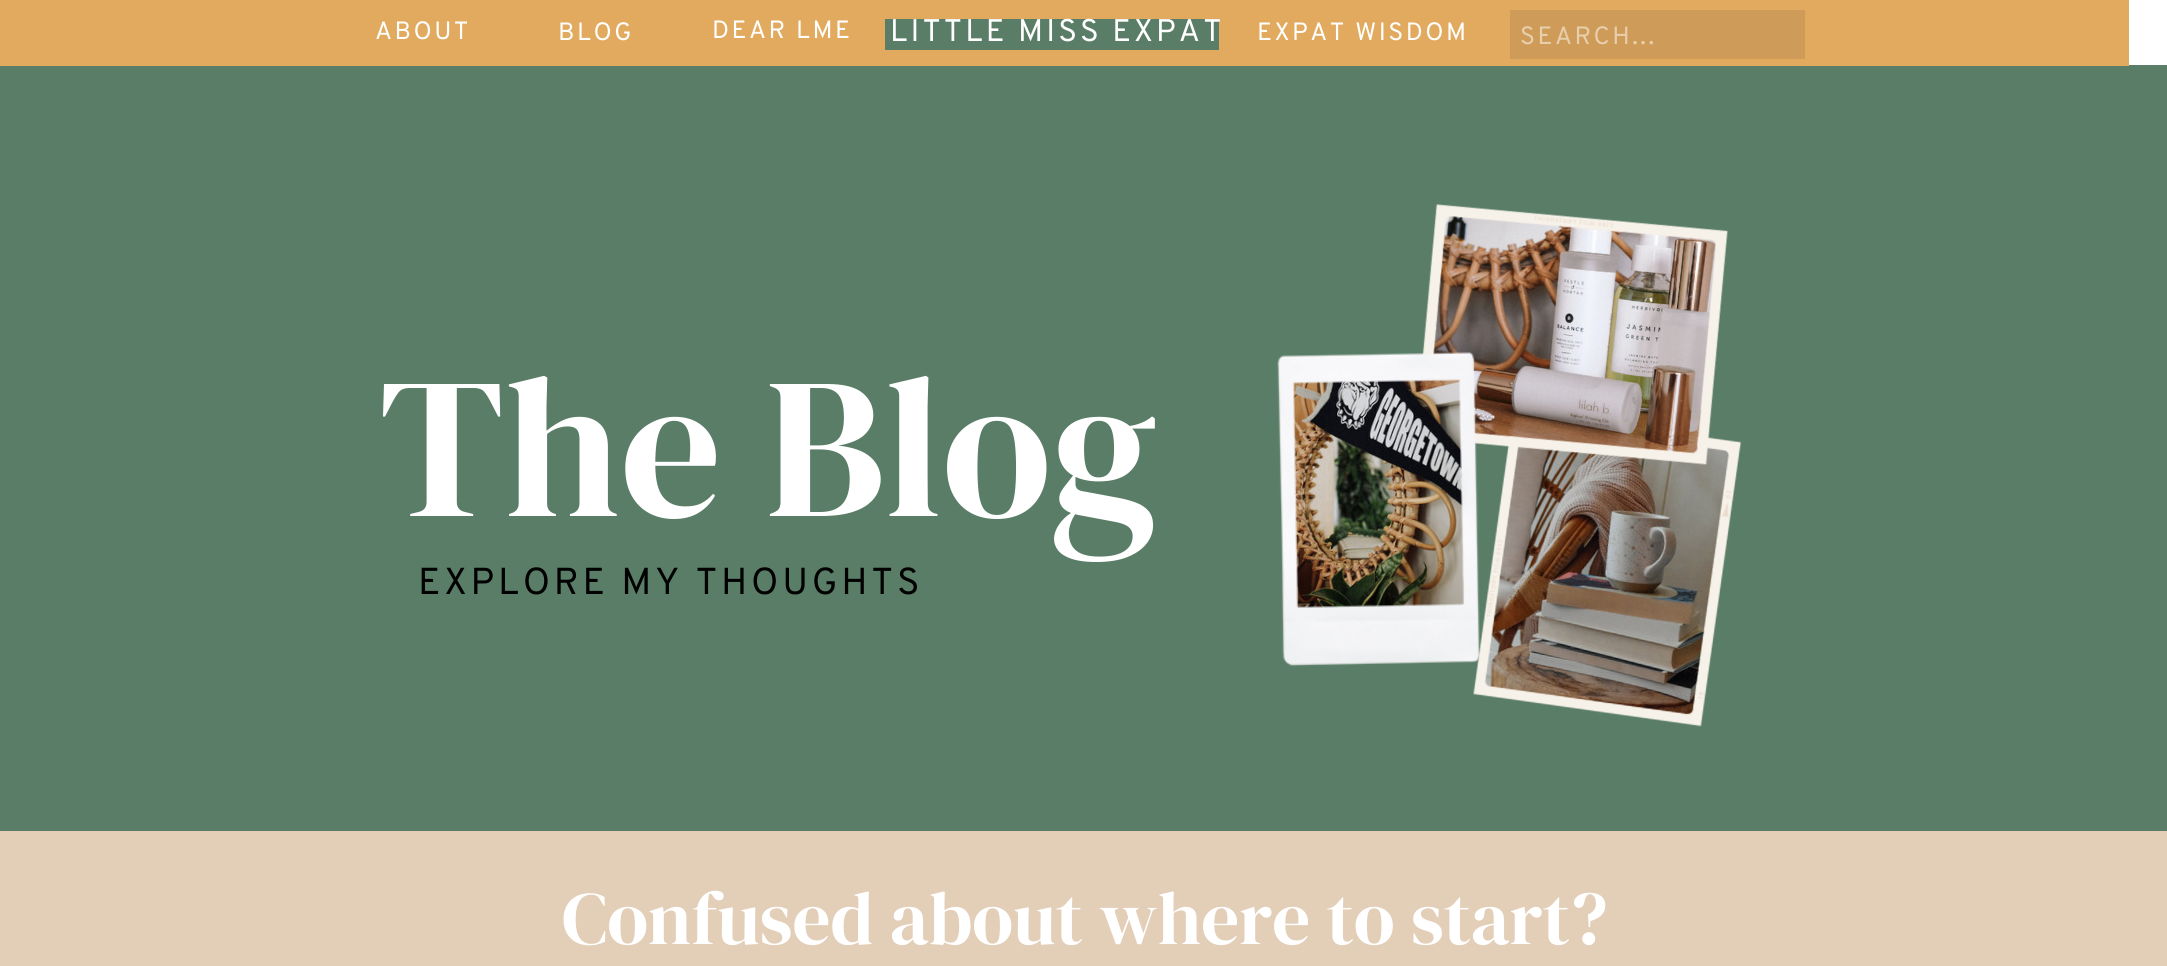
#include <cairo.h>
#include <math.h>
#include <stddef.h>

static cairo_t *ctx;

static void use_color(int r, int g, int b) {
    cairo_set_source_rgb(ctx, r / 255.0, g / 255.0, b / 255.0);
}

static void spaced_text(double x, double y, const char *s, double letter, double word) {
    cairo_move_to(ctx, x, y);
    while (*s) {
        char ch[5] = {0};
        int n = 0;
        do ch[n++] = *s++; while ((*s & 0xC0) == 0x80);
        cairo_show_text(ctx, ch);
        cairo_rel_move_to(ctx, letter + word * (*ch == ' '), 0);
    }
}

static void picture(const char *path, double x, double y, double w, double h) {
    cairo_surface_t *image = cairo_image_surface_create_from_png(path);
    cairo_save(ctx);
    cairo_set_source_surface(ctx, image, x, y);
    cairo_rectangle(ctx, x, y, w, h);
    cairo_fill(ctx);
    cairo_restore(ctx);
    cairo_surface_destroy(image);
}

int main(void) {
    cairo_surface_t *surface = cairo_image_surface_create(CAIRO_FORMAT_RGB24, 2167, 966);
    ctx = cairo_create(surface);
    cairo_font_options_t *options = cairo_font_options_create();
    cairo_font_options_set_hint_metrics(options, CAIRO_HINT_METRICS_OFF);
    cairo_font_options_set_hint_style(options, CAIRO_HINT_STYLE_NONE);
    cairo_set_font_options(ctx, options);
    cairo_set_miter_limit(ctx, 4);
    use_color(255, 255, 255);
    cairo_paint(ctx);
    use_color(90, 125, 103);
    cairo_rectangle(ctx, 0, 65, 2167, 766);
    cairo_fill(ctx);
    use_color(225, 170, 95);
    cairo_rectangle(ctx, 0, 0, 2129, 66);
    cairo_fill(ctx);
    use_color(90, 125, 103);
    cairo_rectangle(ctx, 885, 19, 334, 31);
    cairo_fill(ctx);
    cairo_select_font_face(ctx, "Overpass", CAIRO_FONT_SLANT_NORMAL, CAIRO_FONT_WEIGHT_NORMAL);
    cairo_set_font_size(ctx, 31.25);
    use_color(255, 255, 255);
    spaced_text(890, 41, "LITTLE MISS EXPAT", 3.1, 0);
    use_color(206, 156, 88);
    cairo_rectangle(ctx, 1510, 10, 295, 49);
    cairo_fill(ctx);
    cairo_set_font_size(ctx, 25);
    use_color(255, 255, 255);
    spaced_text(375, 39, "ABOUT", 2.5, 0);
    spaced_text(558, 40, "BLOG", 2.5, 0);
    spaced_text(712, 38, "DEAR LME", 2.5, 0);
    spaced_text(1257, 40, "EXPAT WISDOM", 2.5, 0);
    use_color(231, 206, 172);
    spaced_text(1520, 44, "SEARCH...", 2.5, 0);
    picture("img5.png", 1484, 446, 246, 278);
    picture("img3.png", 1433, 215, 284, 239);
    picture("img1.png", 1422, 204, 320, 523);
    cairo_select_font_face(ctx, "DM Serif Display", CAIRO_FONT_SLANT_NORMAL, CAIRO_FONT_WEIGHT_NORMAL);
    cairo_set_font_size(ctx, 200);
    use_color(255, 255, 255);
    cairo_move_to(ctx, 379, 516);
    cairo_show_text(ctx, "The Blog");
    picture("img4.png", 1292, 379, 173, 229);
    picture("img2.png", 1277, 352, 203, 314);
    cairo_select_font_face(ctx, "Overpass", CAIRO_FONT_SLANT_NORMAL, CAIRO_FONT_WEIGHT_NORMAL);
    cairo_set_font_size(ctx, 37.5);
    use_color(0, 0, 0);
    spaced_text(418, 594, "EXPLORE MY THOUGHTS", 3.75, 0);
    use_color(227, 206, 184);
    cairo_rectangle(ctx, 0, 831, 2167, 135);
    cairo_fill(ctx);
    cairo_select_font_face(ctx, "DM Serif Display", CAIRO_FONT_SLANT_NORMAL, CAIRO_FONT_WEIGHT_NORMAL);
    cairo_set_font_size(ctx, 75);
    use_color(255, 255, 255);
    cairo_move_to(ctx, 562, 944);
    cairo_show_text(ctx, "Confused about where to start?");
    cairo_surface_write_to_png(surface, "result.png");
    cairo_font_options_destroy(options);
    cairo_destroy(ctx);
    cairo_surface_destroy(surface);
    return 0;
}
